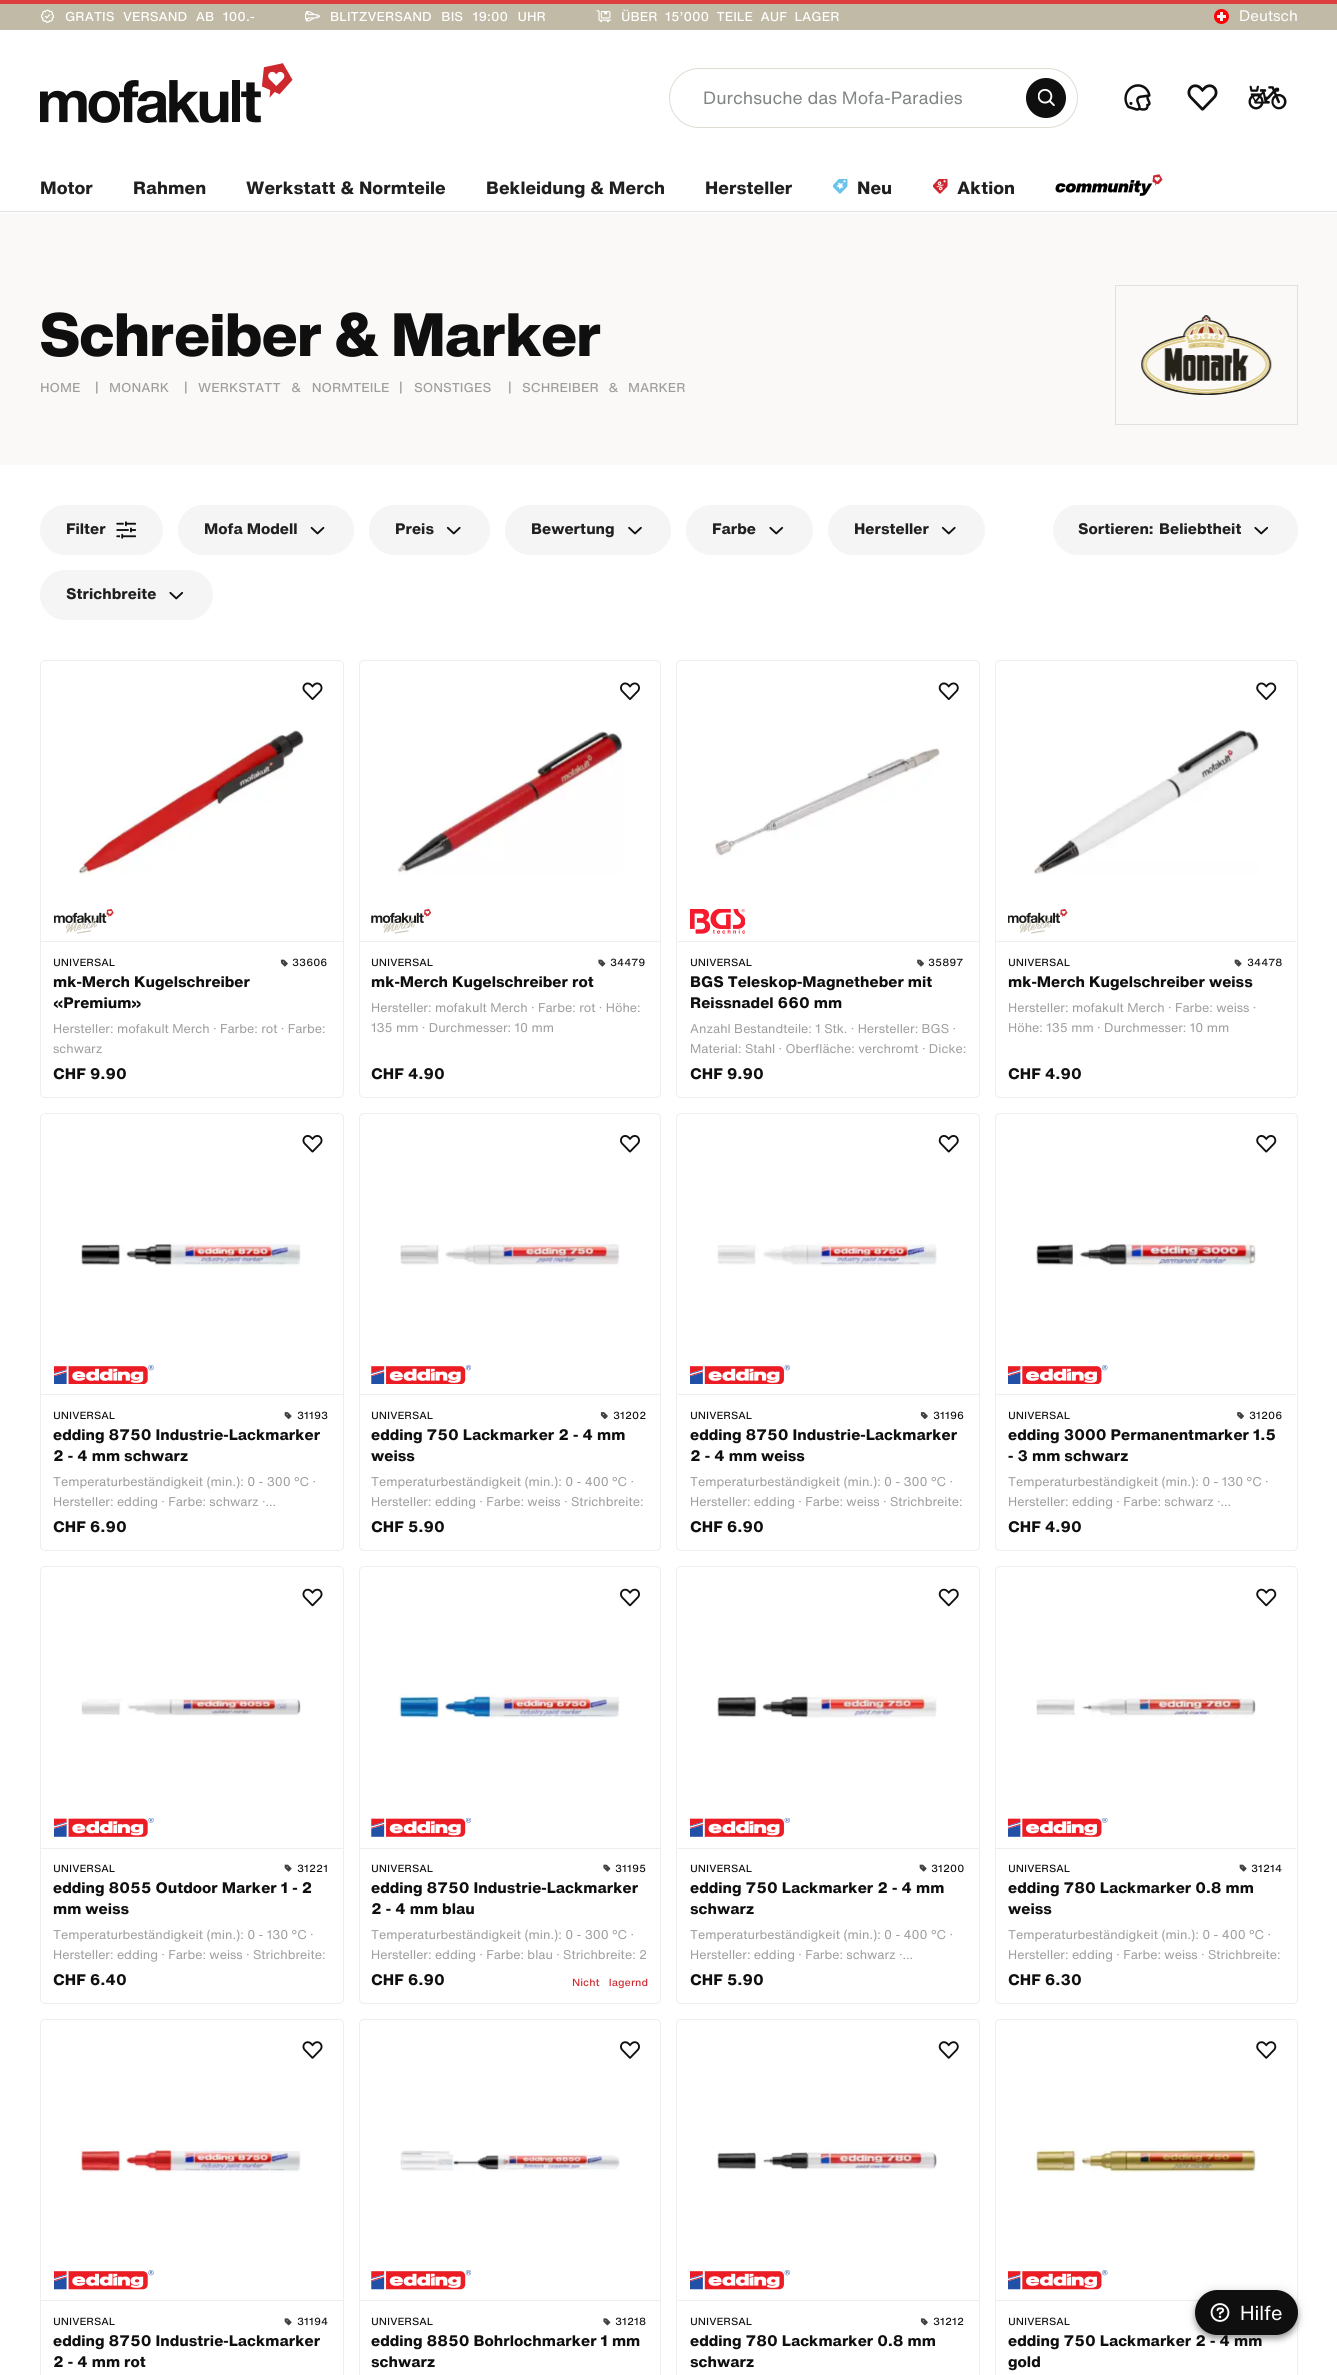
#include <cairo.h>
#include <math.h>
#include <stddef.h>

static cairo_t *ctx;

static void use_color(int r, int g, int b) {
    cairo_set_source_rgb(ctx, r / 255.0, g / 255.0, b / 255.0);
}

static void spaced_text(double x, double y, const char *s, double letter, double word) {
    cairo_move_to(ctx, x, y);
    while (*s) {
        char ch[5] = {0};
        int n = 0;
        do ch[n++] = *s++; while ((*s & 0xC0) == 0x80);
        cairo_show_text(ctx, ch);
        cairo_rel_move_to(ctx, letter + word * (*ch == ' '), 0);
    }
}

static void round_rect(double x, double y, double w, double h, double r) {
    cairo_new_sub_path(ctx);
    cairo_arc(ctx, x + w - r, y + h - r, r, 0, M_PI / 2);
    cairo_arc(ctx, x + r, y + h - r, r, M_PI / 2, M_PI);
    cairo_arc(ctx, x + r, y + r, r, M_PI, 1.5 * M_PI);
    cairo_arc(ctx, x + w - r, y + r, r, 1.5 * M_PI, 2 * M_PI);
    cairo_close_path(ctx);
}

static void shadow(double x, double y, double w, double h, double r, double blur, double alpha) {
    cairo_push_group_with_content(ctx, CAIRO_CONTENT_ALPHA);
    cairo_set_operator(ctx, CAIRO_OPERATOR_SOURCE);
    for (int i = 15; i >= -15 && fmin(w, h) + blur * i / 3 > 0; i -= 2) {
        double e = blur * i / 6;
        cairo_set_source_rgba(ctx, 0, 0, 0, alpha * erfc((i - 1) / 8.5) / 2);
        round_rect(x - e, y - e, w + 2 * e, h + 2 * e, fmax(0, fmin(r + e + blur * .6, fmin(w, h) / 2 + e)));
        cairo_fill(ctx);
    }
    cairo_pattern_t *soft = cairo_pop_group(ctx);
    cairo_mask(ctx, soft);
    cairo_pattern_destroy(soft);
}

static void picture(const char *path, double x, double y, double w, double h) {
    cairo_surface_t *image = cairo_image_surface_create_from_png(path);
    cairo_save(ctx);
    cairo_set_source_surface(ctx, image, x, y);
    cairo_rectangle(ctx, x, y, w, h);
    cairo_fill(ctx);
    cairo_restore(ctx);
    cairo_surface_destroy(image);
}

int main(void) {
    cairo_surface_t *surface = cairo_image_surface_create(CAIRO_FORMAT_RGB24, 1337, 2375);
    ctx = cairo_create(surface);
    cairo_font_options_t *options = cairo_font_options_create();
    cairo_font_options_set_hint_metrics(options, CAIRO_HINT_METRICS_OFF);
    cairo_font_options_set_hint_style(options, CAIRO_HINT_STYLE_NONE);
    cairo_set_font_options(ctx, options);
    cairo_set_miter_limit(ctx, 4);
    use_color(255, 255, 255);
    cairo_paint(ctx);
    use_color(221, 63, 63);
    cairo_rectangle(ctx, 0, 0, 1337, 4);
    cairo_fill(ctx);
    use_color(193, 186, 167);
    cairo_rectangle(ctx, 0, 4, 1337, 26);
    cairo_fill(ctx);
    picture("img1.png", 40, 9, 15, 14);
    cairo_select_font_face(ctx, "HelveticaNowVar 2 Medium", CAIRO_FONT_SLANT_NORMAL, CAIRO_FONT_WEIGHT_NORMAL);
    cairo_set_font_size(ctx, 12.5);
    use_color(255, 255, 255);
    spaced_text(65, 21, "GRATIS VERSAND AB 100.-", 0, 5);
    picture("img2.png", 305, 11, 15, 11);
    spaced_text(330, 21, "BLITZVERSAND BIS 19:00 UHR", 0, 6);
    picture("img3.png", 596, 10, 15, 13);
    spaced_text(621, 21, "ÜBER 15’000 TEILE AUF LAGER", 0, 4);
    use_color(255, 0, 5);
    cairo_new_path(ctx);
    cairo_arc(ctx, 1221.5, 16.5, 7.5, 0, 2 * M_PI);
    cairo_fill(ctx);
    use_color(240, 240, 240);
    cairo_rectangle(ctx, 1217, 15, 9, 3);
    cairo_fill(ctx);
    cairo_rectangle(ctx, 1220, 12, 3, 9);
    cairo_fill(ctx);
    cairo_select_font_face(ctx, "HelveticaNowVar", CAIRO_FONT_SLANT_NORMAL, CAIRO_FONT_WEIGHT_NORMAL);
    cairo_set_font_size(ctx, 15);
    use_color(255, 255, 255);
    cairo_move_to(ctx, 1239, 21);
    cairo_show_text(ctx, "Deutsch");
    use_color(224, 224, 224);
    cairo_rectangle(ctx, 0, 211, 1337, 1);
    cairo_fill(ctx);
    picture("img4.png", 40, 63, 253, 61);
    round_rect(669.5, 68.5, 408, 59, 29.5);
    use_color(224, 220, 210);
    cairo_set_line_width(ctx, 1);
    cairo_stroke(ctx);
    cairo_set_font_size(ctx, 17.5);
    use_color(130, 133, 133);
    cairo_move_to(ctx, 703, 104);
    cairo_show_text(ctx, "Durchsuche das Mofa-Paradies");
    use_color(15, 15, 15);
    cairo_new_path(ctx);
    cairo_arc(ctx, 1046, 98, 20, 0, 2 * M_PI);
    cairo_fill(ctx);
    picture("img5.png", 1038, 89, 17, 17);
    picture("img6.png", 1124, 84, 27, 27);
    picture("img7.png", 1187, 84, 31, 27);
    picture("img8.png", 1248, 85, 39, 25);
    cairo_select_font_face(ctx, "HelveticaNowVar ExtraBold", CAIRO_FONT_SLANT_NORMAL, CAIRO_FONT_WEIGHT_NORMAL);
    use_color(32, 32, 32);
    cairo_move_to(ctx, 40, 194);
    cairo_show_text(ctx, "Motor");
    cairo_move_to(ctx, 133, 194);
    cairo_show_text(ctx, "Rahmen");
    cairo_move_to(ctx, 246, 194);
    cairo_show_text(ctx, "Werkstatt & Normteile");
    cairo_move_to(ctx, 486, 194);
    cairo_show_text(ctx, "Bekleidung & Merch");
    cairo_move_to(ctx, 705, 194);
    cairo_show_text(ctx, "Hersteller");
    picture("img9.png", 833, 179, 15, 15);
    cairo_move_to(ctx, 857, 194);
    cairo_show_text(ctx, "Neu");
    picture("img10.png", 933, 179, 15, 15);
    cairo_move_to(ctx, 957, 194);
    cairo_show_text(ctx, "Aktion");
    picture("img11.png", 1055, 174, 108, 22);
    use_color(250, 249, 247);
    cairo_rectangle(ctx, 0, 213, 1337, 252);
    cairo_fill(ctx);
    cairo_select_font_face(ctx, "HelveticaNowVar 2 ExtraBold", CAIRO_FONT_SLANT_NORMAL, CAIRO_FONT_WEIGHT_NORMAL);
    cairo_set_font_size(ctx, 60);
    use_color(15, 15, 15);
    cairo_move_to(ctx, 40, 356);
    cairo_show_text(ctx, "Schreiber & Marker");
    cairo_select_font_face(ctx, "HelveticaNowVar 2 Medium", CAIRO_FONT_SLANT_NORMAL, CAIRO_FONT_WEIGHT_NORMAL);
    cairo_set_font_size(ctx, 12.5);
    use_color(158, 158, 158);
    cairo_move_to(ctx, 40, 392);
    cairo_show_text(ctx, "HOME");
    cairo_move_to(ctx, 95, 391);
    cairo_show_text(ctx, "|");
    cairo_move_to(ctx, 109, 392);
    cairo_show_text(ctx, "MONARK");
    cairo_move_to(ctx, 184, 391);
    cairo_show_text(ctx, "|");
    spaced_text(198, 392, "WERKSTATT & NORMTEILE", 0, 7);
    cairo_move_to(ctx, 399, 391);
    cairo_show_text(ctx, "|");
    cairo_move_to(ctx, 414, 392);
    cairo_show_text(ctx, "SONSTIGES");
    cairo_move_to(ctx, 508, 391);
    cairo_show_text(ctx, "|");
    spaced_text(522, 392, "SCHREIBER & MARKER", 0, 6);
    cairo_rectangle(ctx, 1115.5, 285.5, 182, 139);
    use_color(224, 224, 224);
    cairo_stroke(ctx);
    picture("img12.png", 1141, 315, 131, 80);
    use_color(245, 245, 245);
    round_rect(40.5, 505.5, 122, 49, 24.5);
    cairo_fill_preserve(ctx);
    cairo_stroke(ctx);
    cairo_select_font_face(ctx, "HelveticaNowVar ExtraBold", CAIRO_FONT_SLANT_NORMAL, CAIRO_FONT_WEIGHT_NORMAL);
    cairo_set_font_size(ctx, 15);
    use_color(32, 32, 32);
    cairo_move_to(ctx, 66, 534);
    cairo_show_text(ctx, "Filter");
    picture("img13.png", 116, 521, 20, 18);
    use_color(245, 245, 245);
    round_rect(178.5, 505.5, 175, 49, 24.5);
    cairo_fill_preserve(ctx);
    cairo_stroke(ctx);
    use_color(32, 32, 32);
    cairo_move_to(ctx, 204, 534);
    cairo_show_text(ctx, "Mofa Modell");
    picture("img14.png", 310, 526, 15, 9);
    use_color(245, 245, 245);
    round_rect(369.5, 505.5, 120, 49, 24.5);
    cairo_fill_preserve(ctx);
    cairo_stroke(ctx);
    use_color(32, 32, 32);
    cairo_move_to(ctx, 395, 534);
    cairo_show_text(ctx, "Preis");
    picture("img15.png", 446, 526, 15, 9);
    use_color(245, 245, 245);
    round_rect(505.5, 505.5, 165, 49, 24.5);
    cairo_fill_preserve(ctx);
    cairo_stroke(ctx);
    use_color(32, 32, 32);
    cairo_move_to(ctx, 531, 534);
    cairo_show_text(ctx, "Bewertung");
    picture("img16.png", 628, 526, 14, 9);
    use_color(245, 245, 245);
    round_rect(686.5, 505.5, 126, 49, 24.5);
    cairo_fill_preserve(ctx);
    cairo_stroke(ctx);
    use_color(32, 32, 32);
    cairo_move_to(ctx, 712, 534);
    cairo_show_text(ctx, "Farbe");
    picture("img17.png", 769, 526, 15, 9);
    use_color(245, 245, 245);
    round_rect(828.5, 505.5, 156, 49, 24.5);
    cairo_fill_preserve(ctx);
    cairo_stroke(ctx);
    use_color(32, 32, 32);
    cairo_move_to(ctx, 854, 534);
    cairo_show_text(ctx, "Hersteller");
    picture("img15.png", 941, 526, 15, 9);
    use_color(245, 245, 245);
    round_rect(40.5, 570.5, 172, 49, 24.5);
    cairo_fill_preserve(ctx);
    cairo_stroke(ctx);
    use_color(32, 32, 32);
    cairo_move_to(ctx, 66, 599);
    cairo_show_text(ctx, "Strichbreite");
    picture("img17.png", 169, 591, 15, 9);
    use_color(245, 245, 245);
    round_rect(1053.5, 505.5, 244, 49, 24.5);
    cairo_fill_preserve(ctx);
    cairo_stroke(ctx);
    use_color(32, 32, 32);
    cairo_move_to(ctx, 1078, 534);
    cairo_show_text(ctx, "Sortieren:");
    cairo_move_to(ctx, 1159, 534);
    cairo_show_text(ctx, "Beliebtheit");
    picture("img17.png", 1254, 526, 15, 9);
    round_rect(40.5, 660.5, 303, 437, 4.5);
    use_color(238, 238, 238);
    cairo_stroke(ctx);
    picture("img18.png", 302, 682, 21, 18);
    cairo_rectangle(ctx, 41, 941, 302, 1);
    cairo_fill(ctx);
    picture("img19.png", 79, 730, 225, 145);
    picture("img20.png", 54, 909, 60, 25);
    cairo_select_font_face(ctx, "HelveticaNowVar Medium", CAIRO_FONT_SLANT_NORMAL, CAIRO_FONT_WEIGHT_NORMAL);
    cairo_set_font_size(ctx, 10);
    use_color(15, 15, 15);
    cairo_move_to(ctx, 53, 966);
    cairo_show_text(ctx, "UNIVERSAL");
    picture("img21.png", 280, 959, 8, 8);
    cairo_move_to(ctx, 292, 966);
    cairo_show_text(ctx, "33606");
    cairo_select_font_face(ctx, "HelveticaNowVar ExtraBold", CAIRO_FONT_SLANT_NORMAL, CAIRO_FONT_WEIGHT_NORMAL);
    cairo_set_font_size(ctx, 15);
    cairo_move_to(ctx, 53, 987);
    cairo_show_text(ctx, "mk-Merch Kugelschreiber");
    cairo_move_to(ctx, 53, 1008);
    cairo_show_text(ctx, "«Premium»");
    cairo_select_font_face(ctx, "HelveticaNowVar", CAIRO_FONT_SLANT_NORMAL, CAIRO_FONT_WEIGHT_NORMAL);
    cairo_set_font_size(ctx, 12.5);
    use_color(158, 158, 158);
    cairo_move_to(ctx, 53, 1033);
    cairo_show_text(ctx, "Hersteller: mofakult Merch · Farbe: rot · Farbe:");
    cairo_move_to(ctx, 53, 1053);
    cairo_show_text(ctx, "schwarz");
    cairo_select_font_face(ctx, "HelveticaNowVar ExtraBold", CAIRO_FONT_SLANT_NORMAL, CAIRO_FONT_WEIGHT_NORMAL);
    cairo_set_font_size(ctx, 15);
    use_color(15, 15, 15);
    cairo_move_to(ctx, 53, 1079);
    cairo_show_text(ctx, "CHF 9.90");
    round_rect(359.5, 660.5, 301, 437, 4.5);
    use_color(238, 238, 238);
    cairo_stroke(ctx);
    picture("img22.png", 620, 682, 20, 18);
    cairo_rectangle(ctx, 360, 941, 300, 1);
    cairo_fill(ctx);
    picture("img23.png", 397, 731, 226, 144);
    picture("img24.png", 371, 909, 60, 25);
    cairo_select_font_face(ctx, "HelveticaNowVar Medium", CAIRO_FONT_SLANT_NORMAL, CAIRO_FONT_WEIGHT_NORMAL);
    cairo_set_font_size(ctx, 10);
    use_color(15, 15, 15);
    cairo_move_to(ctx, 371, 966);
    cairo_show_text(ctx, "UNIVERSAL");
    picture("img25.png", 598, 959, 8, 8);
    cairo_move_to(ctx, 610, 966);
    cairo_show_text(ctx, "34479");
    cairo_select_font_face(ctx, "HelveticaNowVar ExtraBold", CAIRO_FONT_SLANT_NORMAL, CAIRO_FONT_WEIGHT_NORMAL);
    cairo_set_font_size(ctx, 15);
    cairo_move_to(ctx, 371, 987);
    cairo_show_text(ctx, "mk-Merch Kugelschreiber rot");
    cairo_select_font_face(ctx, "HelveticaNowVar", CAIRO_FONT_SLANT_NORMAL, CAIRO_FONT_WEIGHT_NORMAL);
    cairo_set_font_size(ctx, 12.5);
    use_color(158, 158, 158);
    cairo_move_to(ctx, 371, 1012);
    cairo_show_text(ctx, "Hersteller: mofakult Merch · Farbe: rot · Höhe:");
    cairo_move_to(ctx, 371, 1032);
    cairo_show_text(ctx, "135 mm · Durchmesser: 10 mm");
    cairo_select_font_face(ctx, "HelveticaNowVar ExtraBold", CAIRO_FONT_SLANT_NORMAL, CAIRO_FONT_WEIGHT_NORMAL);
    cairo_set_font_size(ctx, 15);
    use_color(15, 15, 15);
    cairo_move_to(ctx, 371, 1079);
    cairo_show_text(ctx, "CHF 4.90");
    round_rect(676.5, 660.5, 303, 437, 4.5);
    use_color(238, 238, 238);
    cairo_stroke(ctx);
    picture("img26.png", 938, 682, 21, 18);
    cairo_rectangle(ctx, 678, 941, 301, 1);
    cairo_fill(ctx);
    picture("img27.png", 715, 748, 225, 109);
    picture("img28.png", 690, 909, 55, 25);
    cairo_select_font_face(ctx, "HelveticaNowVar Medium", CAIRO_FONT_SLANT_NORMAL, CAIRO_FONT_WEIGHT_NORMAL);
    cairo_set_font_size(ctx, 10);
    use_color(15, 15, 15);
    cairo_move_to(ctx, 690, 966);
    cairo_show_text(ctx, "UNIVERSAL");
    picture("img29.png", 917, 959, 7, 8);
    cairo_move_to(ctx, 928, 966);
    cairo_show_text(ctx, "35897");
    cairo_select_font_face(ctx, "HelveticaNowVar ExtraBold", CAIRO_FONT_SLANT_NORMAL, CAIRO_FONT_WEIGHT_NORMAL);
    cairo_set_font_size(ctx, 15);
    cairo_move_to(ctx, 690, 987);
    cairo_show_text(ctx, "BGS Teleskop-Magnetheber mit");
    cairo_move_to(ctx, 690, 1008);
    cairo_show_text(ctx, "Reissnadel 660 mm");
    cairo_select_font_face(ctx, "HelveticaNowVar", CAIRO_FONT_SLANT_NORMAL, CAIRO_FONT_WEIGHT_NORMAL);
    cairo_set_font_size(ctx, 12.5);
    use_color(158, 158, 158);
    cairo_move_to(ctx, 690, 1033);
    cairo_show_text(ctx, "Anzahl Bestandteile: 1 Stk. · Hersteller: BGS ·");
    cairo_move_to(ctx, 690, 1053);
    cairo_show_text(ctx, "Material: Stahl · Oberfläche: verchromt · Dicke:");
    cairo_select_font_face(ctx, "HelveticaNowVar ExtraBold", CAIRO_FONT_SLANT_NORMAL, CAIRO_FONT_WEIGHT_NORMAL);
    cairo_set_font_size(ctx, 15);
    use_color(15, 15, 15);
    cairo_move_to(ctx, 690, 1079);
    cairo_show_text(ctx, "CHF 9.90");
    round_rect(995.5, 660.5, 302, 437, 4.5);
    use_color(238, 238, 238);
    cairo_stroke(ctx);
    picture("img30.png", 1256, 682, 21, 18);
    cairo_rectangle(ctx, 996, 941, 300, 1);
    cairo_fill(ctx);
    picture("img31.png", 1033, 730, 226, 145);
    picture("img32.png", 1008, 909, 60, 25);
    cairo_select_font_face(ctx, "HelveticaNowVar Medium", CAIRO_FONT_SLANT_NORMAL, CAIRO_FONT_WEIGHT_NORMAL);
    cairo_set_font_size(ctx, 10);
    use_color(15, 15, 15);
    cairo_move_to(ctx, 1008, 966);
    cairo_show_text(ctx, "UNIVERSAL");
    picture("img33.png", 1234, 959, 8, 8);
    cairo_move_to(ctx, 1247, 966);
    cairo_show_text(ctx, "34478");
    cairo_select_font_face(ctx, "HelveticaNowVar ExtraBold", CAIRO_FONT_SLANT_NORMAL, CAIRO_FONT_WEIGHT_NORMAL);
    cairo_set_font_size(ctx, 15);
    cairo_move_to(ctx, 1008, 987);
    cairo_show_text(ctx, "mk-Merch Kugelschreiber weiss");
    cairo_select_font_face(ctx, "HelveticaNowVar", CAIRO_FONT_SLANT_NORMAL, CAIRO_FONT_WEIGHT_NORMAL);
    cairo_set_font_size(ctx, 12.5);
    use_color(158, 158, 158);
    cairo_move_to(ctx, 1008, 1012);
    cairo_show_text(ctx, "Hersteller: mofakult Merch · Farbe: weiss ·");
    cairo_move_to(ctx, 1008, 1032);
    cairo_show_text(ctx, "Höhe: 135 mm · Durchmesser: 10 mm");
    cairo_select_font_face(ctx, "HelveticaNowVar ExtraBold", CAIRO_FONT_SLANT_NORMAL, CAIRO_FONT_WEIGHT_NORMAL);
    cairo_set_font_size(ctx, 15);
    use_color(15, 15, 15);
    cairo_move_to(ctx, 1008, 1079);
    cairo_show_text(ctx, "CHF 4.90");
    round_rect(40.5, 1113.5, 303, 437, 4.5);
    use_color(238, 238, 238);
    cairo_stroke(ctx);
    picture("img34.png", 302, 1135, 21, 18);
    cairo_rectangle(ctx, 41, 1394, 302, 1);
    cairo_fill(ctx);
    picture("img35.png", 81, 1242, 220, 25);
    picture("img36.png", 54, 1365, 100, 19);
    cairo_select_font_face(ctx, "HelveticaNowVar Medium", CAIRO_FONT_SLANT_NORMAL, CAIRO_FONT_WEIGHT_NORMAL);
    cairo_set_font_size(ctx, 10);
    use_color(15, 15, 15);
    cairo_move_to(ctx, 53, 1419);
    cairo_show_text(ctx, "UNIVERSAL");
    picture("img37.png", 284, 1412, 8, 7);
    cairo_move_to(ctx, 297, 1419);
    cairo_show_text(ctx, "31193");
    cairo_select_font_face(ctx, "HelveticaNowVar ExtraBold", CAIRO_FONT_SLANT_NORMAL, CAIRO_FONT_WEIGHT_NORMAL);
    cairo_set_font_size(ctx, 15);
    cairo_move_to(ctx, 53, 1440);
    cairo_show_text(ctx, "edding 8750 Industrie-Lackmarker");
    cairo_move_to(ctx, 53, 1461);
    cairo_show_text(ctx, "2 - 4 mm schwarz");
    cairo_select_font_face(ctx, "HelveticaNowVar", CAIRO_FONT_SLANT_NORMAL, CAIRO_FONT_WEIGHT_NORMAL);
    cairo_set_font_size(ctx, 12.5);
    use_color(158, 158, 158);
    cairo_move_to(ctx, 53, 1486);
    cairo_show_text(ctx, "Temperaturbeständigkeit (min.): 0 - 300 °C ·");
    cairo_move_to(ctx, 53, 1506);
    cairo_show_text(ctx, "Hersteller: edding · Farbe: schwarz ·…");
    cairo_select_font_face(ctx, "HelveticaNowVar ExtraBold", CAIRO_FONT_SLANT_NORMAL, CAIRO_FONT_WEIGHT_NORMAL);
    cairo_set_font_size(ctx, 15);
    use_color(15, 15, 15);
    cairo_move_to(ctx, 53, 1532);
    cairo_show_text(ctx, "CHF 6.90");
    round_rect(359.5, 1113.5, 301, 437, 4.5);
    use_color(238, 238, 238);
    cairo_stroke(ctx);
    picture("img38.png", 620, 1135, 20, 18);
    cairo_rectangle(ctx, 360, 1394, 300, 1);
    cairo_fill(ctx);
    picture("img39.png", 400, 1243, 220, 24);
    picture("img40.png", 371, 1365, 100, 19);
    cairo_select_font_face(ctx, "HelveticaNowVar Medium", CAIRO_FONT_SLANT_NORMAL, CAIRO_FONT_WEIGHT_NORMAL);
    cairo_set_font_size(ctx, 10);
    use_color(15, 15, 15);
    cairo_move_to(ctx, 371, 1419);
    cairo_show_text(ctx, "UNIVERSAL");
    picture("img41.png", 600, 1412, 8, 7);
    cairo_move_to(ctx, 613, 1419);
    cairo_show_text(ctx, "31202");
    cairo_select_font_face(ctx, "HelveticaNowVar ExtraBold", CAIRO_FONT_SLANT_NORMAL, CAIRO_FONT_WEIGHT_NORMAL);
    cairo_set_font_size(ctx, 15);
    cairo_move_to(ctx, 371, 1440);
    cairo_show_text(ctx, "edding 750 Lackmarker 2 - 4 mm");
    cairo_move_to(ctx, 371, 1461);
    cairo_show_text(ctx, "weiss");
    cairo_select_font_face(ctx, "HelveticaNowVar", CAIRO_FONT_SLANT_NORMAL, CAIRO_FONT_WEIGHT_NORMAL);
    cairo_set_font_size(ctx, 12.5);
    use_color(158, 158, 158);
    cairo_move_to(ctx, 371, 1486);
    cairo_show_text(ctx, "Temperaturbeständigkeit (min.): 0 - 400 °C ·");
    cairo_move_to(ctx, 371, 1506);
    cairo_show_text(ctx, "Hersteller: edding · Farbe: weiss · Strichbreite:");
    cairo_select_font_face(ctx, "HelveticaNowVar ExtraBold", CAIRO_FONT_SLANT_NORMAL, CAIRO_FONT_WEIGHT_NORMAL);
    cairo_set_font_size(ctx, 15);
    use_color(15, 15, 15);
    cairo_move_to(ctx, 371, 1532);
    cairo_show_text(ctx, "CHF 5.90");
    round_rect(676.5, 1113.5, 303, 437, 4.5);
    use_color(238, 238, 238);
    cairo_stroke(ctx);
    picture("img42.png", 938, 1135, 21, 18);
    cairo_rectangle(ctx, 678, 1394, 301, 1);
    cairo_fill(ctx);
    picture("img43.png", 717, 1241, 220, 26);
    picture("img44.png", 690, 1365, 100, 19);
    cairo_select_font_face(ctx, "HelveticaNowVar Medium", CAIRO_FONT_SLANT_NORMAL, CAIRO_FONT_WEIGHT_NORMAL);
    cairo_set_font_size(ctx, 10);
    use_color(15, 15, 15);
    cairo_move_to(ctx, 690, 1419);
    cairo_show_text(ctx, "UNIVERSAL");
    picture("img41.png", 920, 1412, 8, 7);
    cairo_move_to(ctx, 933, 1419);
    cairo_show_text(ctx, "31196");
    cairo_select_font_face(ctx, "HelveticaNowVar ExtraBold", CAIRO_FONT_SLANT_NORMAL, CAIRO_FONT_WEIGHT_NORMAL);
    cairo_set_font_size(ctx, 15);
    cairo_move_to(ctx, 690, 1440);
    cairo_show_text(ctx, "edding 8750 Industrie-Lackmarker");
    cairo_move_to(ctx, 690, 1461);
    cairo_show_text(ctx, "2 - 4 mm weiss");
    cairo_select_font_face(ctx, "HelveticaNowVar", CAIRO_FONT_SLANT_NORMAL, CAIRO_FONT_WEIGHT_NORMAL);
    cairo_set_font_size(ctx, 12.5);
    use_color(158, 158, 158);
    cairo_move_to(ctx, 690, 1486);
    cairo_show_text(ctx, "Temperaturbeständigkeit (min.): 0 - 300 °C ·");
    cairo_move_to(ctx, 690, 1506);
    cairo_show_text(ctx, "Hersteller: edding · Farbe: weiss · Strichbreite:");
    cairo_select_font_face(ctx, "HelveticaNowVar ExtraBold", CAIRO_FONT_SLANT_NORMAL, CAIRO_FONT_WEIGHT_NORMAL);
    cairo_set_font_size(ctx, 15);
    use_color(15, 15, 15);
    cairo_move_to(ctx, 690, 1532);
    cairo_show_text(ctx, "CHF 6.90");
    round_rect(995.5, 1113.5, 302, 437, 4.5);
    use_color(238, 238, 238);
    cairo_stroke(ctx);
    picture("img45.png", 1256, 1135, 21, 18);
    cairo_rectangle(ctx, 996, 1394, 300, 1);
    cairo_fill(ctx);
    picture("img46.png", 1036, 1240, 220, 27);
    picture("img47.png", 1008, 1365, 100, 19);
    cairo_select_font_face(ctx, "HelveticaNowVar Medium", CAIRO_FONT_SLANT_NORMAL, CAIRO_FONT_WEIGHT_NORMAL);
    cairo_set_font_size(ctx, 10);
    use_color(15, 15, 15);
    cairo_move_to(ctx, 1008, 1419);
    cairo_show_text(ctx, "UNIVERSAL");
    picture("img48.png", 1237, 1412, 7, 7);
    cairo_move_to(ctx, 1249, 1419);
    cairo_show_text(ctx, "31206");
    cairo_select_font_face(ctx, "HelveticaNowVar ExtraBold", CAIRO_FONT_SLANT_NORMAL, CAIRO_FONT_WEIGHT_NORMAL);
    cairo_set_font_size(ctx, 15);
    cairo_move_to(ctx, 1008, 1440);
    cairo_show_text(ctx, "edding 3000 Permanentmarker 1.5");
    cairo_move_to(ctx, 1008, 1461);
    cairo_show_text(ctx, "- 3 mm schwarz");
    cairo_select_font_face(ctx, "HelveticaNowVar", CAIRO_FONT_SLANT_NORMAL, CAIRO_FONT_WEIGHT_NORMAL);
    cairo_set_font_size(ctx, 12.5);
    use_color(158, 158, 158);
    cairo_move_to(ctx, 1008, 1486);
    cairo_show_text(ctx, "Temperaturbeständigkeit (min.): 0 - 130 °C ·");
    cairo_move_to(ctx, 1008, 1506);
    cairo_show_text(ctx, "Hersteller: edding · Farbe: schwarz ·…");
    cairo_select_font_face(ctx, "HelveticaNowVar ExtraBold", CAIRO_FONT_SLANT_NORMAL, CAIRO_FONT_WEIGHT_NORMAL);
    cairo_set_font_size(ctx, 15);
    use_color(15, 15, 15);
    cairo_move_to(ctx, 1008, 1532);
    cairo_show_text(ctx, "CHF 4.90");
    round_rect(40.5, 1566.5, 303, 437, 4.5);
    use_color(238, 238, 238);
    cairo_stroke(ctx);
    picture("img49.png", 302, 1588, 21, 19);
    cairo_rectangle(ctx, 41, 1848, 302, 1);
    cairo_fill(ctx);
    picture("img50.png", 81, 1698, 220, 18);
    picture("img51.png", 54, 1818, 100, 19);
    cairo_select_font_face(ctx, "HelveticaNowVar Medium", CAIRO_FONT_SLANT_NORMAL, CAIRO_FONT_WEIGHT_NORMAL);
    cairo_set_font_size(ctx, 10);
    use_color(15, 15, 15);
    cairo_move_to(ctx, 53, 1872);
    cairo_show_text(ctx, "UNIVERSAL");
    picture("img33.png", 284, 1864, 8, 8);
    cairo_move_to(ctx, 297, 1872);
    cairo_show_text(ctx, "31221");
    cairo_select_font_face(ctx, "HelveticaNowVar ExtraBold", CAIRO_FONT_SLANT_NORMAL, CAIRO_FONT_WEIGHT_NORMAL);
    cairo_set_font_size(ctx, 15);
    cairo_move_to(ctx, 53, 1893);
    cairo_show_text(ctx, "edding 8055 Outdoor Marker 1 - 2");
    cairo_move_to(ctx, 53, 1914);
    cairo_show_text(ctx, "mm weiss");
    cairo_select_font_face(ctx, "HelveticaNowVar", CAIRO_FONT_SLANT_NORMAL, CAIRO_FONT_WEIGHT_NORMAL);
    cairo_set_font_size(ctx, 12.5);
    use_color(158, 158, 158);
    cairo_move_to(ctx, 53, 1939);
    cairo_show_text(ctx, "Temperaturbeständigkeit (min.): 0 - 130 °C ·");
    cairo_move_to(ctx, 53, 1959);
    cairo_show_text(ctx, "Hersteller: edding · Farbe: weiss · Strichbreite:");
    cairo_select_font_face(ctx, "HelveticaNowVar ExtraBold", CAIRO_FONT_SLANT_NORMAL, CAIRO_FONT_WEIGHT_NORMAL);
    cairo_set_font_size(ctx, 15);
    use_color(15, 15, 15);
    cairo_move_to(ctx, 53, 1985);
    cairo_show_text(ctx, "CHF 6.40");
    round_rect(359.5, 1566.5, 301, 437, 4.5);
    use_color(238, 238, 238);
    cairo_stroke(ctx);
    picture("img52.png", 620, 1588, 20, 19);
    cairo_rectangle(ctx, 360, 1848, 300, 1);
    cairo_fill(ctx);
    picture("img53.png", 397, 1693, 223, 26);
    picture("img54.png", 371, 1818, 100, 19);
    cairo_select_font_face(ctx, "HelveticaNowVar Medium", CAIRO_FONT_SLANT_NORMAL, CAIRO_FONT_WEIGHT_NORMAL);
    cairo_set_font_size(ctx, 10);
    use_color(15, 15, 15);
    cairo_move_to(ctx, 371, 1872);
    cairo_show_text(ctx, "UNIVERSAL");
    picture("img25.png", 603, 1864, 8, 8);
    cairo_move_to(ctx, 615, 1872);
    cairo_show_text(ctx, "31195");
    cairo_select_font_face(ctx, "HelveticaNowVar ExtraBold", CAIRO_FONT_SLANT_NORMAL, CAIRO_FONT_WEIGHT_NORMAL);
    cairo_set_font_size(ctx, 15);
    cairo_move_to(ctx, 371, 1893);
    cairo_show_text(ctx, "edding 8750 Industrie-Lackmarker");
    cairo_move_to(ctx, 371, 1914);
    cairo_show_text(ctx, "2 - 4 mm blau");
    cairo_select_font_face(ctx, "HelveticaNowVar", CAIRO_FONT_SLANT_NORMAL, CAIRO_FONT_WEIGHT_NORMAL);
    cairo_set_font_size(ctx, 12.5);
    use_color(158, 158, 158);
    cairo_move_to(ctx, 371, 1939);
    cairo_show_text(ctx, "Temperaturbeständigkeit (min.): 0 - 300 °C ·");
    cairo_move_to(ctx, 371, 1959);
    cairo_show_text(ctx, "Hersteller: edding · Farbe: blau · Strichbreite: 2");
    cairo_select_font_face(ctx, "HelveticaNowVar ExtraBold", CAIRO_FONT_SLANT_NORMAL, CAIRO_FONT_WEIGHT_NORMAL);
    cairo_set_font_size(ctx, 15);
    use_color(15, 15, 15);
    cairo_move_to(ctx, 371, 1985);
    cairo_show_text(ctx, "CHF 6.90");
    cairo_select_font_face(ctx, "HelveticaNowVar Medium", CAIRO_FONT_SLANT_NORMAL, CAIRO_FONT_WEIGHT_NORMAL);
    cairo_set_font_size(ctx, 10);
    use_color(205, 40, 45);
    spaced_text(572, 1986, "Nicht lagernd", 0, 6);
    round_rect(676.5, 1566.5, 303, 437, 4.5);
    use_color(238, 238, 238);
    cairo_stroke(ctx);
    picture("img55.png", 938, 1588, 21, 19);
    cairo_rectangle(ctx, 678, 1848, 301, 1);
    cairo_fill(ctx);
    picture("img56.png", 717, 1694, 220, 25);
    picture("img57.png", 690, 1818, 100, 19);
    use_color(15, 15, 15);
    cairo_move_to(ctx, 690, 1872);
    cairo_show_text(ctx, "UNIVERSAL");
    picture("img33.png", 919, 1864, 8, 8);
    cairo_move_to(ctx, 931, 1872);
    cairo_show_text(ctx, "31200");
    cairo_select_font_face(ctx, "HelveticaNowVar ExtraBold", CAIRO_FONT_SLANT_NORMAL, CAIRO_FONT_WEIGHT_NORMAL);
    cairo_set_font_size(ctx, 15);
    cairo_move_to(ctx, 690, 1893);
    cairo_show_text(ctx, "edding 750 Lackmarker 2 - 4 mm");
    cairo_move_to(ctx, 690, 1914);
    cairo_show_text(ctx, "schwarz");
    cairo_select_font_face(ctx, "HelveticaNowVar", CAIRO_FONT_SLANT_NORMAL, CAIRO_FONT_WEIGHT_NORMAL);
    cairo_set_font_size(ctx, 12.5);
    use_color(158, 158, 158);
    cairo_move_to(ctx, 690, 1939);
    cairo_show_text(ctx, "Temperaturbeständigkeit (min.): 0 - 400 °C ·");
    cairo_move_to(ctx, 690, 1959);
    cairo_show_text(ctx, "Hersteller: edding · Farbe: schwarz ·…");
    cairo_select_font_face(ctx, "HelveticaNowVar ExtraBold", CAIRO_FONT_SLANT_NORMAL, CAIRO_FONT_WEIGHT_NORMAL);
    cairo_set_font_size(ctx, 15);
    use_color(15, 15, 15);
    cairo_move_to(ctx, 690, 1985);
    cairo_show_text(ctx, "CHF 5.90");
    round_rect(995.5, 1566.5, 302, 437, 4.5);
    use_color(238, 238, 238);
    cairo_stroke(ctx);
    picture("img58.png", 1256, 1588, 21, 19);
    cairo_rectangle(ctx, 996, 1848, 300, 1);
    cairo_fill(ctx);
    picture("img59.png", 1036, 1694, 220, 25);
    picture("img60.png", 1008, 1818, 100, 19);
    cairo_select_font_face(ctx, "HelveticaNowVar Medium", CAIRO_FONT_SLANT_NORMAL, CAIRO_FONT_WEIGHT_NORMAL);
    cairo_set_font_size(ctx, 10);
    use_color(15, 15, 15);
    cairo_move_to(ctx, 1008, 1872);
    cairo_show_text(ctx, "UNIVERSAL");
    picture("img33.png", 1239, 1864, 8, 8);
    cairo_move_to(ctx, 1251, 1872);
    cairo_show_text(ctx, "31214");
    cairo_select_font_face(ctx, "HelveticaNowVar ExtraBold", CAIRO_FONT_SLANT_NORMAL, CAIRO_FONT_WEIGHT_NORMAL);
    cairo_set_font_size(ctx, 15);
    cairo_move_to(ctx, 1008, 1893);
    cairo_show_text(ctx, "edding 780 Lackmarker 0.8 mm");
    cairo_move_to(ctx, 1008, 1914);
    cairo_show_text(ctx, "weiss");
    cairo_select_font_face(ctx, "HelveticaNowVar", CAIRO_FONT_SLANT_NORMAL, CAIRO_FONT_WEIGHT_NORMAL);
    cairo_set_font_size(ctx, 12.5);
    use_color(158, 158, 158);
    cairo_move_to(ctx, 1008, 1939);
    cairo_show_text(ctx, "Temperaturbeständigkeit (min.): 0 - 400 °C ·");
    cairo_move_to(ctx, 1008, 1959);
    cairo_show_text(ctx, "Hersteller: edding · Farbe: weiss · Strichbreite:");
    cairo_select_font_face(ctx, "HelveticaNowVar ExtraBold", CAIRO_FONT_SLANT_NORMAL, CAIRO_FONT_WEIGHT_NORMAL);
    cairo_set_font_size(ctx, 15);
    use_color(15, 15, 15);
    cairo_move_to(ctx, 1008, 1985);
    cairo_show_text(ctx, "CHF 6.30");
    round_rect(40.5, 2019.5, 303, 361, 4.5);
    use_color(238, 238, 238);
    cairo_stroke(ctx);
    picture("img61.png", 302, 2041, 21, 18);
    cairo_rectangle(ctx, 41, 2300, 302, 1);
    cairo_fill(ctx);
    picture("img62.png", 79, 2148, 222, 25);
    picture("img63.png", 54, 2270, 100, 20);
    cairo_select_font_face(ctx, "HelveticaNowVar Medium", CAIRO_FONT_SLANT_NORMAL, CAIRO_FONT_WEIGHT_NORMAL);
    cairo_set_font_size(ctx, 10);
    use_color(15, 15, 15);
    cairo_move_to(ctx, 53, 2325);
    cairo_show_text(ctx, "UNIVERSAL");
    picture("img64.png", 284, 2318, 8, 8);
    cairo_move_to(ctx, 297, 2325);
    cairo_show_text(ctx, "31194");
    cairo_select_font_face(ctx, "HelveticaNowVar ExtraBold", CAIRO_FONT_SLANT_NORMAL, CAIRO_FONT_WEIGHT_NORMAL);
    cairo_set_font_size(ctx, 15);
    cairo_move_to(ctx, 53, 2346);
    cairo_show_text(ctx, "edding 8750 Industrie-Lackmarker");
    cairo_move_to(ctx, 53, 2367);
    cairo_show_text(ctx, "2 - 4 mm rot");
    round_rect(359.5, 2019.5, 301, 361, 4.5);
    use_color(238, 238, 238);
    cairo_stroke(ctx);
    picture("img65.png", 620, 2041, 20, 18);
    cairo_rectangle(ctx, 360, 2300, 300, 1);
    cairo_fill(ctx);
    picture("img66.png", 400, 2150, 220, 22);
    picture("img67.png", 371, 2270, 100, 20);
    cairo_select_font_face(ctx, "HelveticaNowVar Medium", CAIRO_FONT_SLANT_NORMAL, CAIRO_FONT_WEIGHT_NORMAL);
    cairo_set_font_size(ctx, 10);
    use_color(15, 15, 15);
    cairo_move_to(ctx, 371, 2325);
    cairo_show_text(ctx, "UNIVERSAL");
    picture("img68.png", 603, 2318, 8, 8);
    cairo_move_to(ctx, 615, 2325);
    cairo_show_text(ctx, "31218");
    cairo_select_font_face(ctx, "HelveticaNowVar ExtraBold", CAIRO_FONT_SLANT_NORMAL, CAIRO_FONT_WEIGHT_NORMAL);
    cairo_set_font_size(ctx, 15);
    cairo_move_to(ctx, 371, 2346);
    cairo_show_text(ctx, "edding 8850 Bohrlochmarker 1 mm");
    cairo_move_to(ctx, 371, 2367);
    cairo_show_text(ctx, "schwarz");
    round_rect(676.5, 2019.5, 303, 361, 4.5);
    use_color(238, 238, 238);
    cairo_stroke(ctx);
    picture("img69.png", 938, 2041, 21, 18);
    cairo_rectangle(ctx, 678, 2300, 301, 1);
    cairo_fill(ctx);
    picture("img70.png", 717, 2148, 220, 22);
    picture("img71.png", 690, 2270, 100, 20);
    cairo_select_font_face(ctx, "HelveticaNowVar Medium", CAIRO_FONT_SLANT_NORMAL, CAIRO_FONT_WEIGHT_NORMAL);
    cairo_set_font_size(ctx, 10);
    use_color(15, 15, 15);
    cairo_move_to(ctx, 690, 2325);
    cairo_show_text(ctx, "UNIVERSAL");
    picture("img72.png", 920, 2318, 8, 8);
    cairo_move_to(ctx, 933, 2325);
    cairo_show_text(ctx, "31212");
    cairo_select_font_face(ctx, "HelveticaNowVar ExtraBold", CAIRO_FONT_SLANT_NORMAL, CAIRO_FONT_WEIGHT_NORMAL);
    cairo_set_font_size(ctx, 15);
    cairo_move_to(ctx, 690, 2346);
    cairo_show_text(ctx, "edding 780 Lackmarker 0.8 mm");
    cairo_move_to(ctx, 690, 2367);
    cairo_show_text(ctx, "schwarz");
    round_rect(995.5, 2019.5, 302, 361, 4.5);
    use_color(238, 238, 238);
    cairo_stroke(ctx);
    picture("img73.png", 1256, 2041, 21, 18);
    cairo_rectangle(ctx, 996, 2300, 300, 1);
    cairo_fill(ctx);
    picture("img74.png", 1034, 2148, 223, 25);
    picture("img75.png", 1008, 2270, 100, 20);
    cairo_select_font_face(ctx, "HelveticaNowVar Medium", CAIRO_FONT_SLANT_NORMAL, CAIRO_FONT_WEIGHT_NORMAL);
    cairo_set_font_size(ctx, 10);
    use_color(15, 15, 15);
    cairo_move_to(ctx, 1008, 2325);
    cairo_show_text(ctx, "UNIVERSAL");
    cairo_select_font_face(ctx, "HelveticaNowVar ExtraBold", CAIRO_FONT_SLANT_NORMAL, CAIRO_FONT_WEIGHT_NORMAL);
    cairo_set_font_size(ctx, 15);
    cairo_move_to(ctx, 1008, 2346);
    cairo_show_text(ctx, "edding 750 Lackmarker 2 - 4 mm");
    cairo_move_to(ctx, 1008, 2367);
    cairo_show_text(ctx, "gold");
    use_color(0, 0, 0);
    shadow(1195, 2293, 103, 45, 22.5, 2.5, 0.2);
    shadow(1195, 2291, 103, 45, 22.5, 6, 0.12);
    shadow(1195, 2295, 103, 45, 22.5, 3, 0.14);
    use_color(15, 15, 15);
    round_rect(1195, 2290, 103, 45, 22.5);
    cairo_fill(ctx);
    picture("img76.png", 1210, 2303, 20, 19);
    cairo_select_font_face(ctx, "HelveticaNowVar 2", CAIRO_FONT_SLANT_NORMAL, CAIRO_FONT_WEIGHT_NORMAL);
    cairo_set_font_size(ctx, 20);
    use_color(255, 255, 255);
    cairo_move_to(ctx, 1240, 2320);
    cairo_show_text(ctx, "Hilfe");
    cairo_surface_write_to_png(surface, "result.png");
    cairo_font_options_destroy(options);
    cairo_destroy(ctx);
    cairo_surface_destroy(surface);
    return 0;
}
